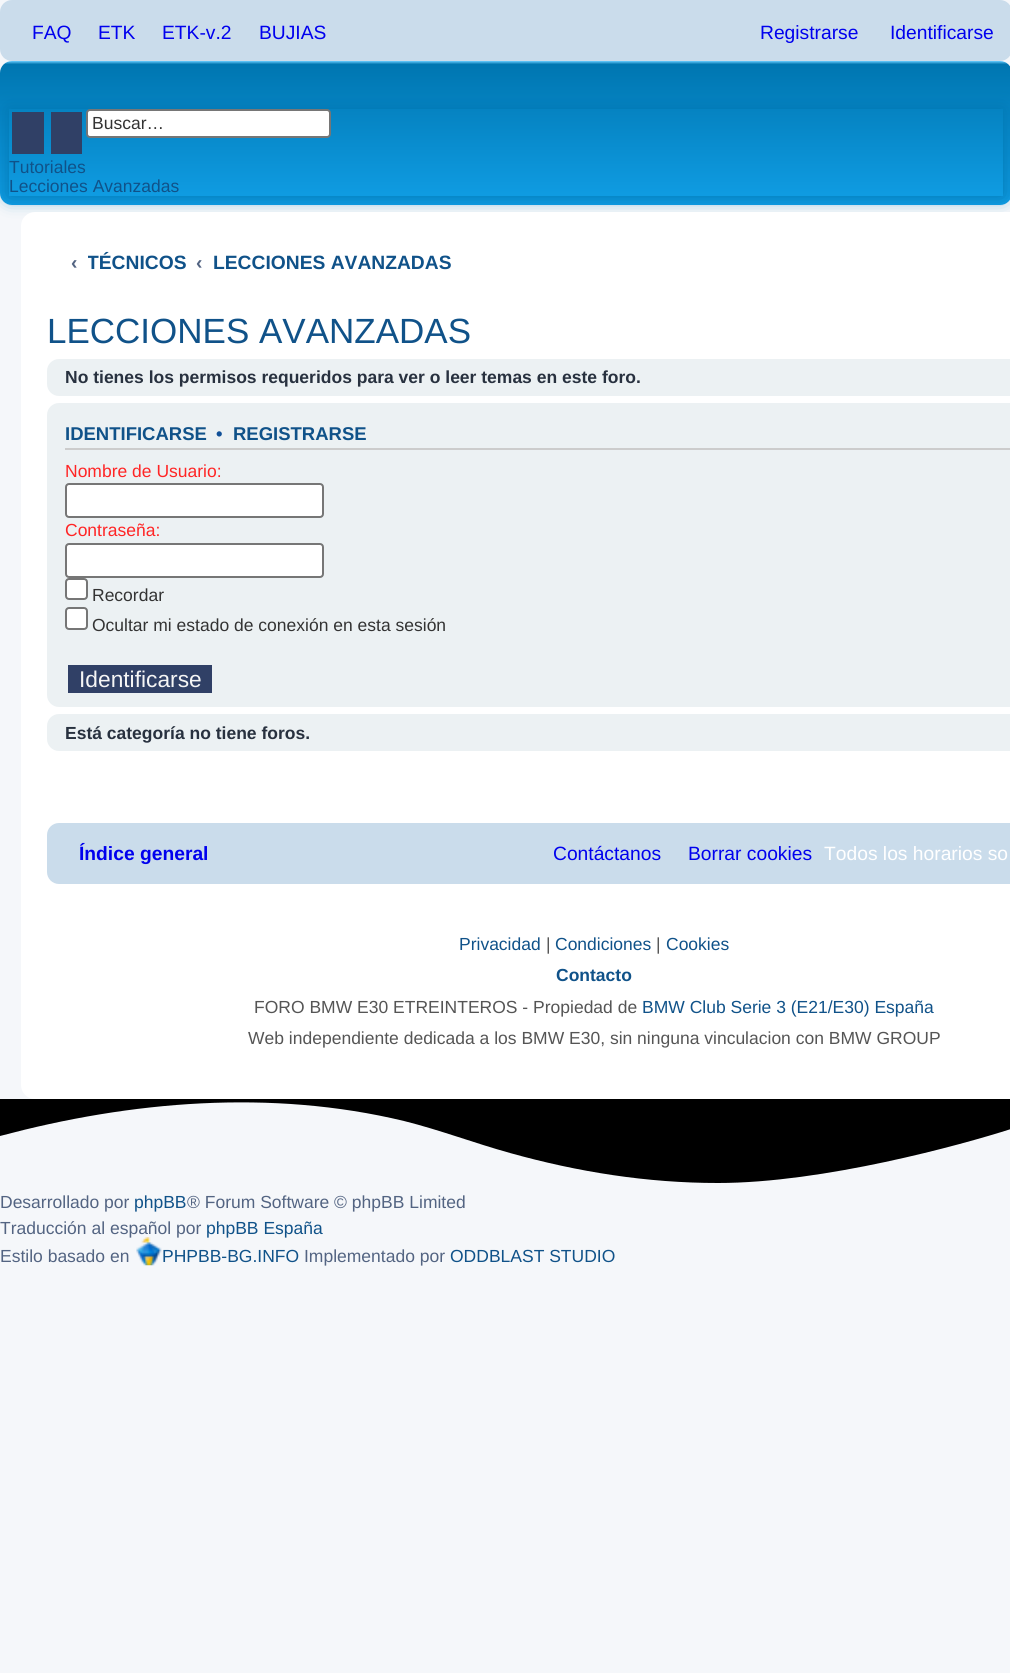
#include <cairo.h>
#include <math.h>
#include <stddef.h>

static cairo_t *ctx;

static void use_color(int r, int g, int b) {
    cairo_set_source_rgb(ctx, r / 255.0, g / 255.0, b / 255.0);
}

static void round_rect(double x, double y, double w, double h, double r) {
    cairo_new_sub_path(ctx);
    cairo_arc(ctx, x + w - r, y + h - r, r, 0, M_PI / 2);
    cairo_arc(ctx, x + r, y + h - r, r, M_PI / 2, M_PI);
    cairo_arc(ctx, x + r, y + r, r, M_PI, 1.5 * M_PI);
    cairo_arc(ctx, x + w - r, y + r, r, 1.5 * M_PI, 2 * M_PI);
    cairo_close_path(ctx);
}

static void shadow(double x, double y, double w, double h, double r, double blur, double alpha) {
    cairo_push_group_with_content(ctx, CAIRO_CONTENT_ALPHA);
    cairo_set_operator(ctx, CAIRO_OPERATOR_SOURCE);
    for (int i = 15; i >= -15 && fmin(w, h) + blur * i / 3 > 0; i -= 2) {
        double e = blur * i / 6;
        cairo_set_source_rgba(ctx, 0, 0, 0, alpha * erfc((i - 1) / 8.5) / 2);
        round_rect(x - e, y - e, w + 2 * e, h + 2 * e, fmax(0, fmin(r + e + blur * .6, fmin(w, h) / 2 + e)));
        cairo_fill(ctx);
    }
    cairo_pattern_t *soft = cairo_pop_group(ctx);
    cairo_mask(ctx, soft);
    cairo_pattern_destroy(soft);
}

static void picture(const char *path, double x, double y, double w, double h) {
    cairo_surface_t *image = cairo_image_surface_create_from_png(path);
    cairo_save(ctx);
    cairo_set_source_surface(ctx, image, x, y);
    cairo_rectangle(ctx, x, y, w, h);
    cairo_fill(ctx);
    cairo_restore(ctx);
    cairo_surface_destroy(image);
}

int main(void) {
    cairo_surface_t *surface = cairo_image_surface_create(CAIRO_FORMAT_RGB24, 1010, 1673);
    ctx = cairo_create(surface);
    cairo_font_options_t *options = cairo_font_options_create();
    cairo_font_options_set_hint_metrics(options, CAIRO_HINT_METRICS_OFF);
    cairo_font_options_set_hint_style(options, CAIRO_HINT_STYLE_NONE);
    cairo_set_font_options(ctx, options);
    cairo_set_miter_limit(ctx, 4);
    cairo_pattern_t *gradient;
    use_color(245, 247, 250);
    cairo_paint(ctx);
    use_color(202, 220, 235);
    round_rect(0, 0, 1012, 61, 12);
    cairo_fill(ctx);
    cairo_select_font_face(ctx, "Liberation Sans", CAIRO_FONT_SLANT_NORMAL, CAIRO_FONT_WEIGHT_NORMAL);
    cairo_set_font_size(ctx, 19.25);
    use_color(0, 0, 238);
    cairo_move_to(ctx, 32, 39);
    cairo_show_text(ctx, "FAQ");
    cairo_move_to(ctx, 98, 39);
    cairo_show_text(ctx, "ETK");
    cairo_move_to(ctx, 162, 39);
    cairo_show_text(ctx, "ETK-v.2");
    cairo_move_to(ctx, 259, 39);
    cairo_show_text(ctx, "BUJIAS");
    cairo_move_to(ctx, 760, 39);
    cairo_show_text(ctx, "Registrarse");
    cairo_move_to(ctx, 890, 39);
    cairo_show_text(ctx, "Identificarse");
    gradient = cairo_pattern_create_linear(506, 61, 506, 222);
    cairo_pattern_add_color_stop_rgba(gradient, 0, 0.416, 0.808, 1, 1);
    cairo_pattern_add_color_stop_rgba(gradient, 0.02, 0, 0.463, 0.694, 1);
    cairo_pattern_add_color_stop_rgba(gradient, 1, 0.071, 0.639, 0.922, 1);
    cairo_set_source(ctx, gradient);
    cairo_pattern_destroy(gradient);
    round_rect(0, 61, 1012, 144, 12);
    cairo_fill(ctx);
    cairo_save(ctx);
    cairo_set_fill_rule(ctx, CAIRO_FILL_RULE_EVEN_ODD);
    cairo_new_path(ctx);
    cairo_move_to(ctx, 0, 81);
    cairo_line_to(ctx, 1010, 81);
    cairo_line_to(ctx, 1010, 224);
    cairo_line_to(ctx, 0, 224);
    cairo_close_path(ctx);
    cairo_move_to(ctx, 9, 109);
    cairo_line_to(ctx, 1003, 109);
    cairo_line_to(ctx, 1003, 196);
    cairo_line_to(ctx, 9, 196);
    cairo_close_path(ctx);
    cairo_clip(ctx);
    use_color(0, 117, 176);
    shadow(9, 109, 994, 87, 0, 9, 1);
    cairo_restore(ctx);
    use_color(48, 64, 102);
    cairo_rectangle(ctx, 12, 112, 32, 42);
    cairo_fill(ctx);
    cairo_rectangle(ctx, 51, 112, 31, 42);
    cairo_fill(ctx);
    use_color(255, 255, 255);
    round_rect(87, 110, 243, 27, 3);
    cairo_fill_preserve(ctx);
    use_color(118, 118, 118);
    cairo_stroke(ctx);
    cairo_set_font_size(ctx, 17.5);
    use_color(51, 51, 51);
    cairo_move_to(ctx, 92, 129);
    cairo_show_text(ctx, "Buscar…");
    use_color(16, 82, 137);
    cairo_move_to(ctx, 9, 173);
    cairo_show_text(ctx, "Tutoriales");
    cairo_move_to(ctx, 9, 192);
    cairo_show_text(ctx, "Lecciones Avanzadas");
    use_color(255, 255, 255);
    round_rect(21, 212, 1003, 887, 14);
    cairo_fill(ctx);
    cairo_select_font_face(ctx, "Liberation Sans", CAIRO_FONT_SLANT_NORMAL, CAIRO_FONT_WEIGHT_BOLD);
    cairo_set_font_size(ctx, 19.25);
    use_color(83, 100, 130);
    cairo_move_to(ctx, 71, 269);
    cairo_show_text(ctx, "‹");
    cairo_save(ctx);
    cairo_rectangle(ctx, 88, 242, 99, 42);
    cairo_clip(ctx);
    use_color(16, 82, 137);
    cairo_move_to(ctx, 87, 269);
    cairo_show_text(ctx, "TÉCNICOS");
    cairo_restore(ctx);
    cairo_move_to(ctx, 196, 269);
    cairo_show_text(ctx, "‹");
    use_color(16, 82, 137);
    cairo_move_to(ctx, 213, 269);
    cairo_show_text(ctx, "LECCIONES AVANZADAS");
    cairo_select_font_face(ctx, "Liberation Sans", CAIRO_FONT_SLANT_NORMAL, CAIRO_FONT_WEIGHT_NORMAL);
    cairo_set_font_size(ctx, 35);
    cairo_move_to(ctx, 47, 343);
    cairo_show_text(ctx, "LECCIONES AVANZADAS");
    use_color(236, 241, 243);
    round_rect(47, 359, 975, 37, 12);
    cairo_fill(ctx);
    cairo_select_font_face(ctx, "Liberation Sans", CAIRO_FONT_SLANT_NORMAL, CAIRO_FONT_WEIGHT_BOLD);
    cairo_set_font_size(ctx, 17.5);
    use_color(40, 49, 63);
    cairo_move_to(ctx, 65, 383);
    cairo_show_text(ctx, "No tienes los permisos requeridos para ver o leer temas en este foro.");
    use_color(236, 241, 243);
    round_rect(47, 403, 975, 304, 12);
    cairo_fill(ctx);
    use_color(204, 204, 204);
    cairo_rectangle(ctx, 65, 448, 945, 2);
    cairo_fill(ctx);
    cairo_set_font_size(ctx, 18.5);
    use_color(16, 82, 137);
    cairo_move_to(ctx, 65, 440);
    cairo_show_text(ctx, "IDENTIFICARSE");
    use_color(17, 80, 152);
    cairo_move_to(ctx, 216, 440);
    cairo_show_text(ctx, "•");
    use_color(16, 82, 137);
    cairo_move_to(ctx, 233, 440);
    cairo_show_text(ctx, "REGISTRARSE");
    cairo_select_font_face(ctx, "Liberation Sans", CAIRO_FONT_SLANT_NORMAL, CAIRO_FONT_WEIGHT_NORMAL);
    cairo_set_font_size(ctx, 17.5);
    use_color(255, 37, 37);
    cairo_move_to(ctx, 65, 477);
    cairo_show_text(ctx, "Nombre de Usuario:");
    use_color(255, 255, 255);
    round_rect(66, 484, 257, 33, 3);
    cairo_fill_preserve(ctx);
    use_color(118, 118, 118);
    cairo_stroke(ctx);
    use_color(255, 37, 37);
    cairo_move_to(ctx, 65, 536);
    cairo_show_text(ctx, "Contraseña:");
    use_color(255, 255, 255);
    round_rect(66, 544, 257, 33, 3);
    cairo_fill_preserve(ctx);
    use_color(118, 118, 118);
    cairo_stroke(ctx);
    use_color(255, 255, 255);
    round_rect(66, 579, 21, 20, 3);
    cairo_fill_preserve(ctx);
    use_color(118, 118, 118);
    cairo_stroke(ctx);
    use_color(51, 51, 51);
    cairo_move_to(ctx, 92, 601);
    cairo_show_text(ctx, "Recordar");
    use_color(255, 255, 255);
    round_rect(66, 608, 21, 21, 3);
    cairo_fill_preserve(ctx);
    use_color(118, 118, 118);
    cairo_stroke(ctx);
    use_color(51, 51, 51);
    cairo_move_to(ctx, 92, 631);
    cairo_show_text(ctx, "Ocultar mi estado de conexión en esta sesión");
    use_color(48, 64, 102);
    cairo_rectangle(ctx, 68, 665, 144, 28);
    cairo_fill(ctx);
    cairo_set_font_size(ctx, 22.75);
    use_color(245, 245, 245);
    cairo_move_to(ctx, 79, 687);
    cairo_show_text(ctx, "Identificarse");
    use_color(236, 241, 243);
    round_rect(47, 714, 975, 37, 12);
    cairo_fill(ctx);
    cairo_select_font_face(ctx, "Liberation Sans", CAIRO_FONT_SLANT_NORMAL, CAIRO_FONT_WEIGHT_BOLD);
    cairo_set_font_size(ctx, 17.5);
    use_color(40, 49, 63);
    cairo_move_to(ctx, 65, 739);
    cairo_show_text(ctx, "Está categoría no tiene foros.");
    use_color(202, 220, 235);
    round_rect(47, 823, 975, 61, 12);
    cairo_fill(ctx);
    cairo_set_font_size(ctx, 19.25);
    use_color(0, 0, 238);
    cairo_move_to(ctx, 79, 860);
    cairo_show_text(ctx, "Índice general");
    cairo_select_font_face(ctx, "Liberation Sans", CAIRO_FONT_SLANT_NORMAL, CAIRO_FONT_WEIGHT_NORMAL);
    cairo_move_to(ctx, 553, 860);
    cairo_show_text(ctx, "Contáctanos");
    cairo_move_to(ctx, 688, 860);
    cairo_show_text(ctx, "Borrar cookies");
    use_color(255, 255, 255);
    cairo_move_to(ctx, 824, 860);
    cairo_show_text(ctx, "Todos los horarios so");
    cairo_set_font_size(ctx, 17.5);
    use_color(16, 82, 137);
    cairo_move_to(ctx, 459, 950);
    cairo_show_text(ctx, "Privacidad");
    use_color(85, 85, 85);
    cairo_move_to(ctx, 546, 950);
    cairo_show_text(ctx, "|");
    use_color(16, 82, 137);
    cairo_move_to(ctx, 555, 950);
    cairo_show_text(ctx, "Condiciones");
    use_color(85, 85, 85);
    cairo_move_to(ctx, 656, 950);
    cairo_show_text(ctx, "|");
    use_color(16, 82, 137);
    cairo_move_to(ctx, 666, 950);
    cairo_show_text(ctx, "Cookies");
    cairo_select_font_face(ctx, "Liberation Sans", CAIRO_FONT_SLANT_NORMAL, CAIRO_FONT_WEIGHT_BOLD);
    cairo_move_to(ctx, 556, 981);
    cairo_show_text(ctx, "Contacto");
    cairo_select_font_face(ctx, "Liberation Sans", CAIRO_FONT_SLANT_NORMAL, CAIRO_FONT_WEIGHT_NORMAL);
    use_color(85, 85, 85);
    cairo_move_to(ctx, 254, 1013);
    cairo_show_text(ctx, "FORO BMW E30 ETREINTEROS - Propiedad de");
    use_color(16, 82, 137);
    cairo_move_to(ctx, 642, 1013);
    cairo_show_text(ctx, "BMW Club Serie 3 (E21/E30) España");
    use_color(85, 85, 85);
    cairo_move_to(ctx, 248, 1044);
    cairo_show_text(ctx, "Web independiente dedicada a los BMW E30, sin ninguna vinculacion con BMW GROUP");
    use_color(0, 0, 0);
    cairo_new_path(ctx);
    cairo_move_to(ctx, 718, 1183);
    cairo_curve_to(ctx, 823, 1183, 961, 1145, 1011, 1129);
    cairo_line_to(ctx, 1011, 1099);
    cairo_line_to(ctx, 0, 1099);
    cairo_line_to(ctx, 0, 1136);
    cairo_curve_to(ctx, 131, 1101, 271, 1089, 404, 1121);
    cairo_curve_to(ctx, 440, 1130, 474, 1143, 510, 1153);
    cairo_curve_to(ctx, 578, 1172, 647, 1183, 718, 1183);
    cairo_close_path(ctx);
    cairo_fill(ctx);
    use_color(83, 100, 130);
    cairo_move_to(ctx, 0, 1208);
    cairo_show_text(ctx, "Desarrollado por");
    use_color(16, 82, 137);
    cairo_move_to(ctx, 134, 1208);
    cairo_show_text(ctx, "phpBB");
    use_color(83, 100, 130);
    cairo_move_to(ctx, 187, 1208);
    cairo_show_text(ctx, "® Forum Software © phpBB Limited");
    cairo_move_to(ctx, 0, 1234);
    cairo_show_text(ctx, "Traducción al español por");
    use_color(16, 82, 137);
    cairo_move_to(ctx, 206, 1234);
    cairo_show_text(ctx, "phpBB España");
    use_color(83, 100, 130);
    cairo_move_to(ctx, 0, 1262);
    cairo_show_text(ctx, "Estilo basado en");
    picture("img1.png", 136, 1237, 26, 29);
    use_color(16, 82, 137);
    cairo_move_to(ctx, 162, 1262);
    cairo_show_text(ctx, "PHPBB-BG.INFO");
    use_color(83, 100, 130);
    cairo_move_to(ctx, 304, 1262);
    cairo_show_text(ctx, "Implementado por");
    use_color(16, 82, 137);
    cairo_move_to(ctx, 450, 1262);
    cairo_show_text(ctx, "ODDBLAST STUDIO");
    cairo_surface_write_to_png(surface, "result.png");
    cairo_font_options_destroy(options);
    cairo_destroy(ctx);
    cairo_surface_destroy(surface);
    return 0;
}
